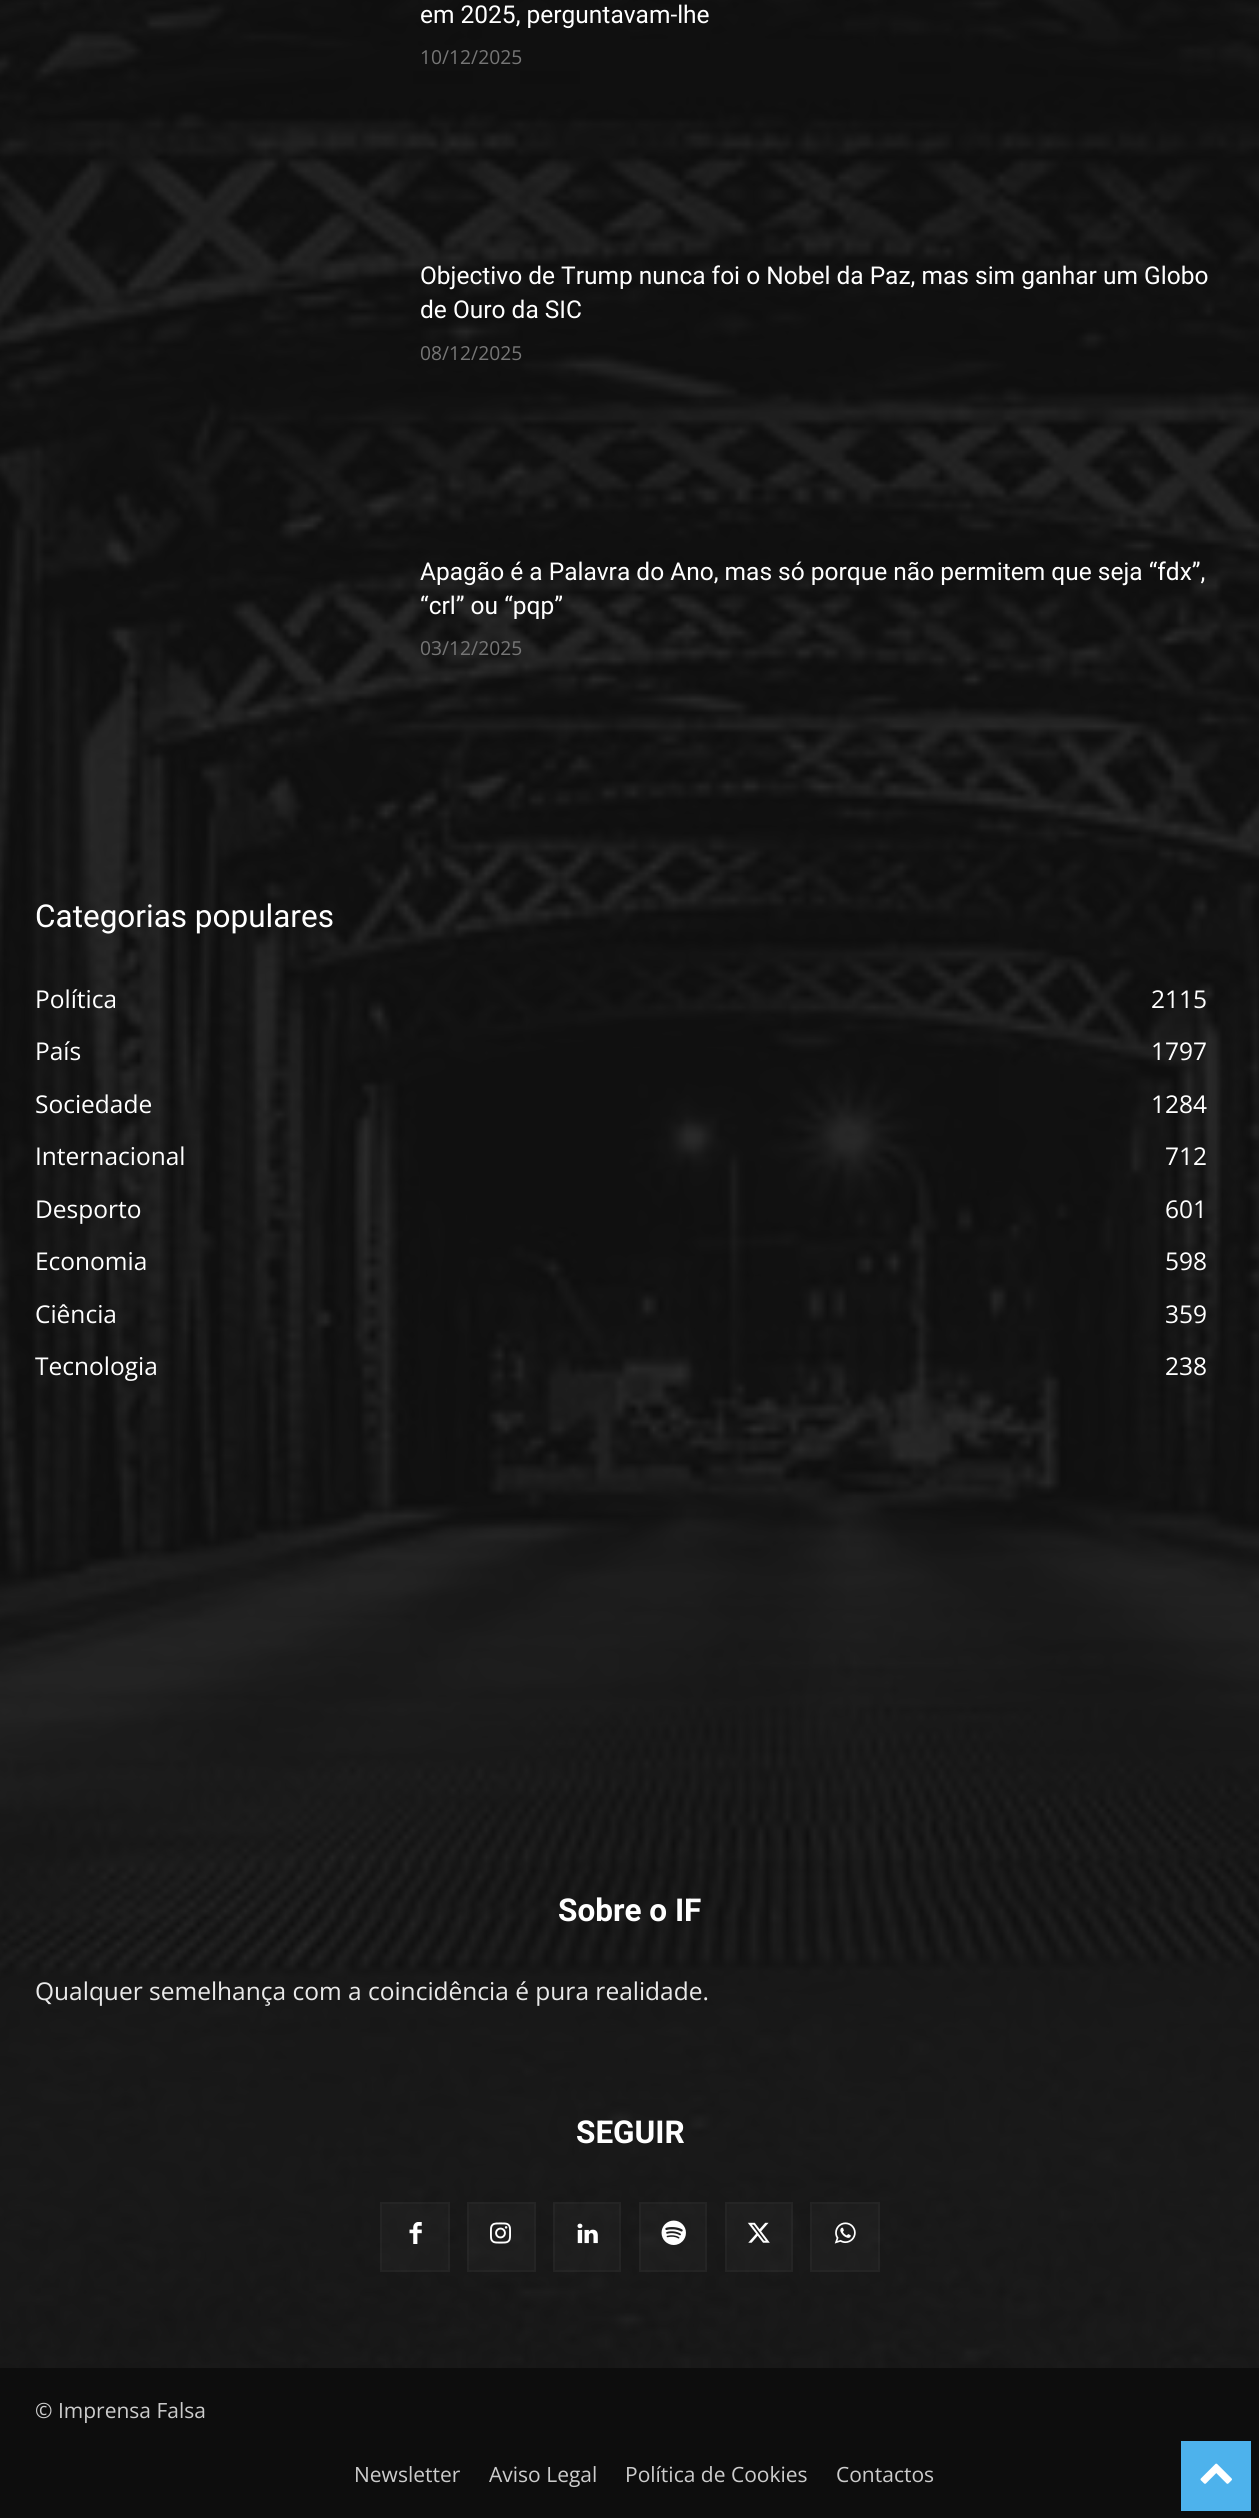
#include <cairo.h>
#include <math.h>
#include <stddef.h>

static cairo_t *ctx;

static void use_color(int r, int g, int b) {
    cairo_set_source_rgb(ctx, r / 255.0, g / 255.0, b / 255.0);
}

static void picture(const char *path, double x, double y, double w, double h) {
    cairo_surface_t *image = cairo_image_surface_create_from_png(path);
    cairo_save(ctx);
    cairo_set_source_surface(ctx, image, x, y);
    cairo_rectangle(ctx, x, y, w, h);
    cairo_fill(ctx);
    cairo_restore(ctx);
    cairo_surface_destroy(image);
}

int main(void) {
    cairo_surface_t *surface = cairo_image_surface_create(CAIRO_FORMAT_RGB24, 1259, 2518);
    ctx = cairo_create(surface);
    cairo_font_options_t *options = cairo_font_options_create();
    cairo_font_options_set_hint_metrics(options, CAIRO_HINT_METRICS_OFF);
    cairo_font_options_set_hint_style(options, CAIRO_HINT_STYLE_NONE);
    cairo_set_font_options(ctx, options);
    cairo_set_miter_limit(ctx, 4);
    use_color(17, 17, 17);
    cairo_paint(ctx);
    picture("img1.png", 0, 0, 1259, 2368);
    cairo_select_font_face(ctx, "Roboto", CAIRO_FONT_SLANT_NORMAL, CAIRO_FONT_WEIGHT_NORMAL);
    cairo_set_font_size(ctx, 24.5);
    use_color(255, 255, 255);
    cairo_move_to(ctx, 420, 23);
    cairo_show_text(ctx, "em 2025, perguntavam-lhe");
    cairo_select_font_face(ctx, "Open Sans", CAIRO_FONT_SLANT_NORMAL, CAIRO_FONT_WEIGHT_NORMAL);
    cairo_set_font_size(ctx, 19.25);
    use_color(118, 118, 118);
    cairo_move_to(ctx, 420, 64);
    cairo_show_text(ctx, "10/12/2025");
    cairo_select_font_face(ctx, "Roboto", CAIRO_FONT_SLANT_NORMAL, CAIRO_FONT_WEIGHT_NORMAL);
    cairo_set_font_size(ctx, 24.5);
    use_color(255, 255, 255);
    cairo_move_to(ctx, 420, 284);
    cairo_show_text(ctx, "Objectivo de Trump nunca foi o Nobel da Paz, mas sim ganhar um Globo");
    cairo_move_to(ctx, 420, 318);
    cairo_show_text(ctx, "de Ouro da SIC");
    cairo_select_font_face(ctx, "Open Sans", CAIRO_FONT_SLANT_NORMAL, CAIRO_FONT_WEIGHT_NORMAL);
    cairo_set_font_size(ctx, 19.25);
    use_color(118, 118, 118);
    cairo_move_to(ctx, 420, 360);
    cairo_show_text(ctx, "08/12/2025");
    cairo_select_font_face(ctx, "Roboto", CAIRO_FONT_SLANT_NORMAL, CAIRO_FONT_WEIGHT_NORMAL);
    cairo_set_font_size(ctx, 24.5);
    use_color(255, 255, 255);
    cairo_move_to(ctx, 420, 580);
    cairo_show_text(ctx, "Apagão é a Palavra do Ano, mas só porque não permitem que seja “fdx”,");
    cairo_move_to(ctx, 420, 614);
    cairo_show_text(ctx, "“crl” ou “pqp”");
    cairo_select_font_face(ctx, "Open Sans", CAIRO_FONT_SLANT_NORMAL, CAIRO_FONT_WEIGHT_NORMAL);
    cairo_set_font_size(ctx, 19.25);
    use_color(118, 118, 118);
    cairo_move_to(ctx, 420, 655);
    cairo_show_text(ctx, "03/12/2025");
    cairo_select_font_face(ctx, "Roboto", CAIRO_FONT_SLANT_NORMAL, CAIRO_FONT_WEIGHT_NORMAL);
    cairo_set_font_size(ctx, 31.5);
    use_color(255, 255, 255);
    cairo_move_to(ctx, 35, 927);
    cairo_show_text(ctx, "Categorias populares");
    cairo_select_font_face(ctx, "Open Sans", CAIRO_FONT_SLANT_NORMAL, CAIRO_FONT_WEIGHT_NORMAL);
    cairo_set_font_size(ctx, 24.5);
    cairo_move_to(ctx, 35, 1008);
    cairo_show_text(ctx, "Política");
    cairo_move_to(ctx, 1151, 1008);
    cairo_show_text(ctx, "2115");
    cairo_move_to(ctx, 35, 1060);
    cairo_show_text(ctx, "País");
    cairo_move_to(ctx, 1151, 1060);
    cairo_show_text(ctx, "1797");
    cairo_move_to(ctx, 35, 1113);
    cairo_show_text(ctx, "Sociedade");
    cairo_move_to(ctx, 1151, 1113);
    cairo_show_text(ctx, "1284");
    cairo_move_to(ctx, 35, 1165);
    cairo_show_text(ctx, "Internacional");
    cairo_move_to(ctx, 1165, 1165);
    cairo_show_text(ctx, "712");
    cairo_move_to(ctx, 35, 1218);
    cairo_show_text(ctx, "Desporto");
    cairo_move_to(ctx, 1165, 1218);
    cairo_show_text(ctx, "601");
    cairo_move_to(ctx, 35, 1270);
    cairo_show_text(ctx, "Economia");
    cairo_move_to(ctx, 1165, 1270);
    cairo_show_text(ctx, "598");
    cairo_move_to(ctx, 35, 1323);
    cairo_show_text(ctx, "Ciência");
    cairo_move_to(ctx, 1165, 1323);
    cairo_show_text(ctx, "359");
    cairo_move_to(ctx, 35, 1375);
    cairo_show_text(ctx, "Tecnologia");
    cairo_move_to(ctx, 1165, 1375);
    cairo_show_text(ctx, "238");
    cairo_select_font_face(ctx, "Roboto", CAIRO_FONT_SLANT_NORMAL, CAIRO_FONT_WEIGHT_BOLD);
    cairo_set_font_size(ctx, 31.5);
    cairo_move_to(ctx, 558, 1921);
    cairo_show_text(ctx, "Sobre o IF");
    cairo_select_font_face(ctx, "Open Sans", CAIRO_FONT_SLANT_NORMAL, CAIRO_FONT_WEIGHT_NORMAL);
    cairo_set_font_size(ctx, 24.5);
    use_color(234, 234, 234);
    cairo_move_to(ctx, 35, 2000);
    cairo_show_text(ctx, "Qualquer semelhança com a coincidência é pura realidade.");
    cairo_select_font_face(ctx, "Roboto", CAIRO_FONT_SLANT_NORMAL, CAIRO_FONT_WEIGHT_BOLD);
    cairo_set_font_size(ctx, 31.5);
    use_color(255, 255, 255);
    cairo_move_to(ctx, 576, 2143);
    cairo_show_text(ctx, "SEGUIR");
    cairo_set_source_rgba(ctx, 1, 1, 1, 0.03);
    cairo_rectangle(ctx, 380, 2202, 70, 70);
    cairo_fill(ctx);
    cairo_rectangle(ctx, 381, 2203, 68, 68);
    cairo_stroke(ctx);
    picture("img2.png", 409, 2222, 13, 22);
    cairo_rectangle(ctx, 467, 2202, 69, 70);
    cairo_fill(ctx);
    cairo_rectangle(ctx, 468, 2203, 67, 68);
    cairo_stroke(ctx);
    picture("img3.png", 490, 2222, 21, 22);
    cairo_rectangle(ctx, 553, 2202, 68, 70);
    cairo_fill(ctx);
    cairo_rectangle(ctx, 554, 2203, 66, 68);
    cairo_stroke(ctx);
    picture("img4.png", 577, 2223, 21, 21);
    cairo_rectangle(ctx, 639, 2202, 68, 70);
    cairo_fill(ctx);
    cairo_rectangle(ctx, 640, 2203, 66, 68);
    cairo_stroke(ctx);
    picture("img5.png", 661, 2220, 25, 25);
    cairo_rectangle(ctx, 725, 2202, 68, 70);
    cairo_fill(ctx);
    cairo_rectangle(ctx, 726, 2203, 66, 68);
    cairo_stroke(ctx);
    picture("img6.png", 747, 2222, 23, 21);
    cairo_rectangle(ctx, 810, 2202, 70, 70);
    cairo_fill(ctx);
    cairo_rectangle(ctx, 811, 2203, 68, 68);
    cairo_stroke(ctx);
    picture("img7.png", 834, 2222, 22, 22);
    use_color(13, 13, 13);
    cairo_rectangle(ctx, 0, 2368, 1259, 150);
    cairo_fill(ctx);
    cairo_select_font_face(ctx, "Open Sans", CAIRO_FONT_SLANT_NORMAL, CAIRO_FONT_WEIGHT_NORMAL);
    cairo_set_font_size(ctx, 21);
    use_color(204, 204, 204);
    cairo_move_to(ctx, 35, 2418);
    cairo_show_text(ctx, "© Imprensa Falsa");
    cairo_move_to(ctx, 354, 2482);
    cairo_show_text(ctx, "Newsletter");
    cairo_move_to(ctx, 489, 2482);
    cairo_show_text(ctx, "Aviso Legal");
    cairo_move_to(ctx, 625, 2482);
    cairo_show_text(ctx, "Política de Cookies");
    cairo_move_to(ctx, 836, 2482);
    cairo_show_text(ctx, "Contactos");
    use_color(77, 178, 236);
    cairo_rectangle(ctx, 1181, 2441, 70, 70);
    cairo_fill(ctx);
    picture("img8.png", 1200, 2463, 32, 21);
    cairo_surface_write_to_png(surface, "result.png");
    cairo_font_options_destroy(options);
    cairo_destroy(ctx);
    cairo_surface_destroy(surface);
    return 0;
}
